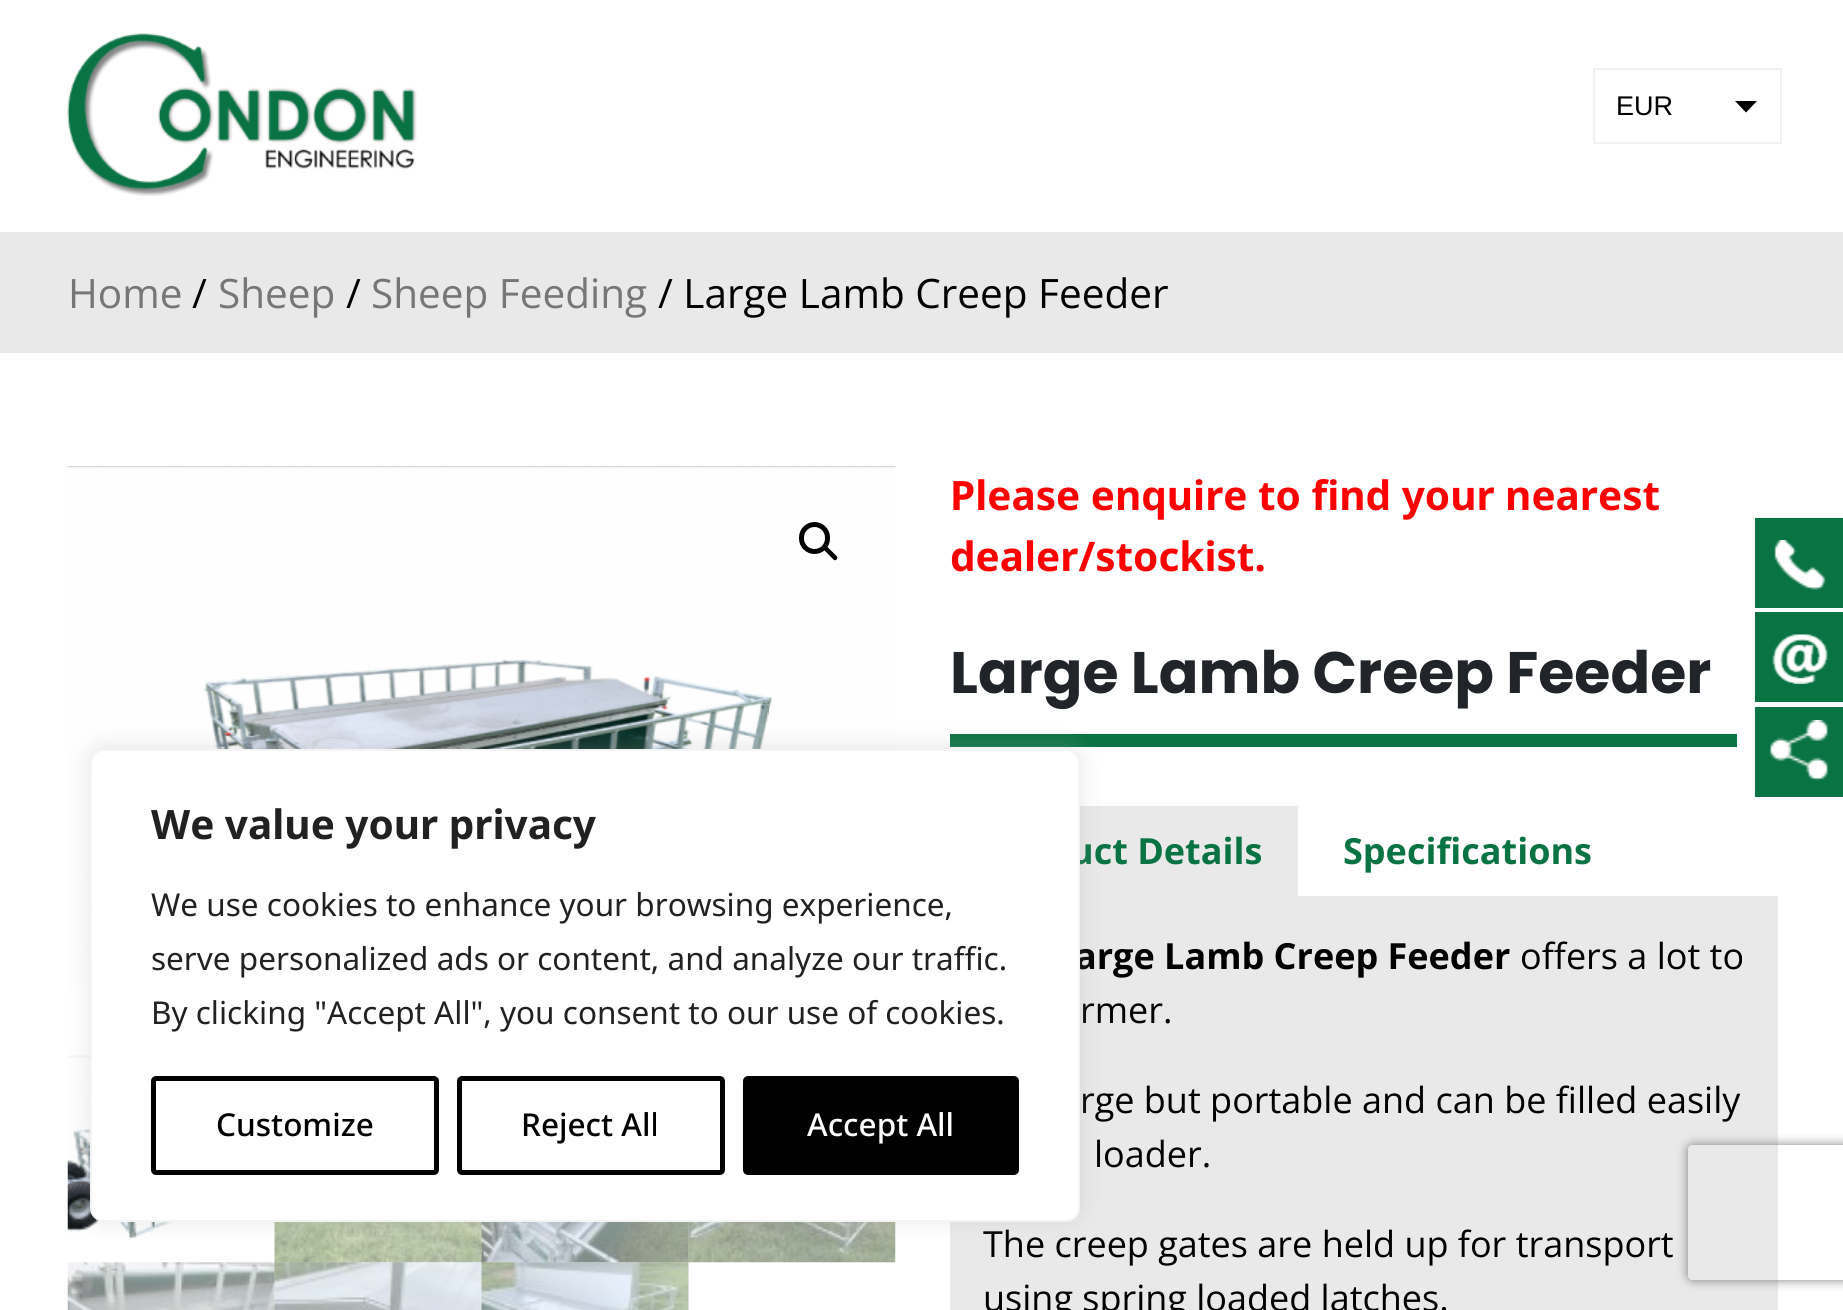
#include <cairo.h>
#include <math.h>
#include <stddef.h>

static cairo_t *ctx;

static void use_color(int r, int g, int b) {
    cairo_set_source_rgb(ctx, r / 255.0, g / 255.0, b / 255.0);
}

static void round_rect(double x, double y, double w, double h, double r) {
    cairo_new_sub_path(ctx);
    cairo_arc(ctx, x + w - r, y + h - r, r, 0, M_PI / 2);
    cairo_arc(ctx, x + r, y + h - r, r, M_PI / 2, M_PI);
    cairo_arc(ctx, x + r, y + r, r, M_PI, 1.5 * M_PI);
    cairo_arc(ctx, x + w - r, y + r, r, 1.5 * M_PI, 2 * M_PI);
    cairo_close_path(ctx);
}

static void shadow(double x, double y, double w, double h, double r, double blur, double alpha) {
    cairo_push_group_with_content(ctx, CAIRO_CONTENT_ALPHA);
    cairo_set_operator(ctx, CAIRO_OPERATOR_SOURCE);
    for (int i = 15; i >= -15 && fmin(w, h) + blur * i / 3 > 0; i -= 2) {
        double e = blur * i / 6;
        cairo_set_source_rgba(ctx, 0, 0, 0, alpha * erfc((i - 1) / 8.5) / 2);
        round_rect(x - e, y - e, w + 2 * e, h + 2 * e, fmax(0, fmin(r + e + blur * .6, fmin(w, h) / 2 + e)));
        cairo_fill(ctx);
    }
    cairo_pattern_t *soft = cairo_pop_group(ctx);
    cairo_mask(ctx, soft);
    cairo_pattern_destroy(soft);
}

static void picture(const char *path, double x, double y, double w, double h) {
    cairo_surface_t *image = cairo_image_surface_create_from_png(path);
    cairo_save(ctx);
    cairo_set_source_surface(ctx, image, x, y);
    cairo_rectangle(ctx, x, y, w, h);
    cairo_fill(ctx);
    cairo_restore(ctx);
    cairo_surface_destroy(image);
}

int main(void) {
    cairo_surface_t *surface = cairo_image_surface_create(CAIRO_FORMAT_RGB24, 1843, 1310);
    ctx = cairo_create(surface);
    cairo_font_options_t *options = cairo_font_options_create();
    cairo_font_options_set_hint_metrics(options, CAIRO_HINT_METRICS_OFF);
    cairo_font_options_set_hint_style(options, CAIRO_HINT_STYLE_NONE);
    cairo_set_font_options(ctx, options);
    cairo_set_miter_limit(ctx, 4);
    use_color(255, 255, 255);
    cairo_paint(ctx);
    picture("img1.png", 67, 33, 350, 163);
    cairo_rectangle(ctx, 1594, 69, 187, 74);
    use_color(242, 242, 242);
    cairo_stroke(ctx);
    cairo_select_font_face(ctx, "Liberation Sans", CAIRO_FONT_SLANT_NORMAL, CAIRO_FONT_WEIGHT_NORMAL);
    cairo_set_font_size(ctx, 27);
    use_color(0, 0, 0);
    cairo_move_to(ctx, 1616, 115);
    cairo_show_text(ctx, "EUR");
    cairo_new_path(ctx);
    cairo_move_to(ctx, 1735, 101);
    cairo_line_to(ctx, 1757, 101);
    cairo_line_to(ctx, 1746, 112.5);
    cairo_close_path(ctx);
    cairo_fill(ctx);
    use_color(233, 233, 233);
    cairo_rectangle(ctx, 0, 232, 1843, 121);
    cairo_fill(ctx);
    cairo_select_font_face(ctx, "Open Sans", CAIRO_FONT_SLANT_NORMAL, CAIRO_FONT_WEIGHT_NORMAL);
    cairo_set_font_size(ctx, 40.5);
    use_color(118, 118, 118);
    cairo_move_to(ctx, 68, 308);
    cairo_show_text(ctx, "Home");
    use_color(0, 0, 0);
    cairo_move_to(ctx, 192, 308);
    cairo_show_text(ctx, "/");
    use_color(118, 118, 118);
    cairo_move_to(ctx, 218, 308);
    cairo_show_text(ctx, "Sheep");
    use_color(0, 0, 0);
    cairo_move_to(ctx, 346, 308);
    cairo_show_text(ctx, "/");
    use_color(118, 118, 118);
    cairo_move_to(ctx, 371, 308);
    cairo_show_text(ctx, "Sheep Feeding");
    use_color(0, 0, 0);
    cairo_move_to(ctx, 658, 308);
    cairo_show_text(ctx, "/ Large Lamb Creep Feeder");
    picture("img2.png", 68, 466, 828, 521);
    round_rect(801.5, 524.5, 26, 27, 13);
    cairo_set_line_width(ctx, 5);
    cairo_stroke(ctx);
    cairo_new_path(ctx);
    cairo_move_to(ctx, 824, 546.5);
    cairo_curve_to(ctx, 825, 546, 826, 546, 827, 546.5);
    cairo_line_to(ctx, 836.5, 556);
    cairo_curve_to(ctx, 837.5, 557, 837.5, 558.5, 836.5, 559.5);
    cairo_curve_to(ctx, 835.5, 560.5, 834.5, 560.5, 833.5, 559.5);
    cairo_line_to(ctx, 824, 550);
    cairo_curve_to(ctx, 823, 549, 823, 547.5, 824, 546.5);
    cairo_close_path(ctx);
    cairo_fill(ctx);
    picture("img3.png", 67, 1055, 208, 185);
    picture("img4.png", 274, 1222, 208, 41);
    picture("img5.png", 481, 1222, 208, 41);
    picture("img6.png", 688, 1222, 208, 41);
    picture("img7.png", 67, 1262, 208, 48);
    picture("img8.png", 274, 1262, 208, 48);
    picture("img9.png", 481, 1262, 208, 48);
    cairo_select_font_face(ctx, "Noto Sans", CAIRO_FONT_SLANT_NORMAL, CAIRO_FONT_WEIGHT_BOLD);
    use_color(255, 0, 0);
    cairo_move_to(ctx, 950, 510);
    cairo_show_text(ctx, "Please enquire to find your nearest");
    cairo_move_to(ctx, 950, 571);
    cairo_show_text(ctx, "dealer/stockist.");
    cairo_select_font_face(ctx, "Poppins", CAIRO_FONT_SLANT_NORMAL, CAIRO_FONT_WEIGHT_BOLD);
    cairo_set_font_size(ctx, 58.5);
    use_color(33, 37, 41);
    cairo_move_to(ctx, 950, 693);
    cairo_show_text(ctx, "Large Lamb Creep Feeder");
    use_color(10, 115, 67);
    cairo_rectangle(ctx, 950, 734, 787, 13);
    cairo_fill(ctx);
    use_color(233, 233, 233);
    cairo_rectangle(ctx, 1080, 806, 218, 90);
    cairo_fill(ctx);
    cairo_select_font_face(ctx, "Open Sans", CAIRO_FONT_SLANT_NORMAL, CAIRO_FONT_WEIGHT_BOLD);
    cairo_set_font_size(ctx, 36);
    use_color(10, 115, 67);
    cairo_move_to(ctx, 1070, 864);
    cairo_show_text(ctx, "uct Details");
    cairo_move_to(ctx, 1343, 864);
    cairo_show_text(ctx, "Specifications");
    use_color(233, 233, 233);
    cairo_rectangle(ctx, 950, 896, 828, 414);
    cairo_fill(ctx);
    use_color(0, 0, 0);
    cairo_move_to(ctx, 1075, 969);
    cairo_show_text(ctx, "arge Lamb Creep Feeder");
    cairo_select_font_face(ctx, "Open Sans", CAIRO_FONT_SLANT_NORMAL, CAIRO_FONT_WEIGHT_NORMAL);
    cairo_move_to(ctx, 1520, 969);
    cairo_show_text(ctx, "offers a lot to");
    cairo_move_to(ctx, 1080, 1023);
    cairo_show_text(ctx, "rmer.");
    cairo_move_to(ctx, 1080, 1113);
    cairo_show_text(ctx, "rge but portable and can be filled easily");
    cairo_move_to(ctx, 1094, 1167);
    cairo_show_text(ctx, "loader.");
    cairo_move_to(ctx, 983, 1257);
    cairo_show_text(ctx, "The creep gates are held up for transport");
    cairo_move_to(ctx, 983, 1311);
    cairo_show_text(ctx, "using spring loaded latches.");
    use_color(10, 115, 67);
    cairo_rectangle(ctx, 1755, 518, 88, 90);
    cairo_fill(ctx);
    picture("img10.png", 1774, 540, 52, 50);
    cairo_rectangle(ctx, 1755, 612, 88, 90);
    cairo_fill(ctx);
    picture("img11.png", 1772, 634, 56, 50);
    cairo_rectangle(ctx, 1755, 707, 88, 90);
    cairo_fill(ctx);
    picture("img12.png", 1770, 720, 59, 61);
    use_color(172, 171, 171);
    shadow(90, 747, 990, 473, 14, 11, 0.3);
    use_color(255, 255, 255);
    round_rect(91, 750, 988, 471, 13);
    cairo_fill_preserve(ctx);
    use_color(244, 244, 244);
    cairo_set_line_width(ctx, 2);
    cairo_stroke(ctx);
    cairo_select_font_face(ctx, "Noto Sans", CAIRO_FONT_SLANT_NORMAL, CAIRO_FONT_WEIGHT_BOLD);
    cairo_set_font_size(ctx, 40.5);
    use_color(33, 33, 33);
    cairo_move_to(ctx, 151, 839);
    cairo_show_text(ctx, "We value your privacy");
    cairo_select_font_face(ctx, "Noto Sans", CAIRO_FONT_SLANT_NORMAL, CAIRO_FONT_WEIGHT_NORMAL);
    cairo_set_font_size(ctx, 31.5);
    cairo_move_to(ctx, 151, 916);
    cairo_show_text(ctx, "We use cookies to enhance your browsing experience,");
    cairo_move_to(ctx, 151, 970);
    cairo_show_text(ctx, "serve personalized ads or content, and analyze our traffic.");
    cairo_move_to(ctx, 151, 1024);
    cairo_show_text(ctx, "By clicking \"Accept All\", you consent to our use of cookies.");
    round_rect(153.5, 1078.5, 283, 94, 2.5);
    use_color(0, 0, 0);
    cairo_set_line_width(ctx, 5);
    cairo_stroke(ctx);
    cairo_select_font_face(ctx, "Noto Sans Medium", CAIRO_FONT_SLANT_NORMAL, CAIRO_FONT_WEIGHT_NORMAL);
    cairo_move_to(ctx, 216, 1136);
    cairo_show_text(ctx, "Customize");
    round_rect(459.5, 1078.5, 263, 94, 2.5);
    cairo_stroke(ctx);
    cairo_move_to(ctx, 521, 1136);
    cairo_show_text(ctx, "Reject All");
    round_rect(745.5, 1078.5, 271, 94, 2.5);
    cairo_fill_preserve(ctx);
    cairo_stroke(ctx);
    use_color(255, 255, 255);
    cairo_move_to(ctx, 807, 1136);
    cairo_show_text(ctx, "Accept All");
    cairo_save(ctx);
    cairo_set_fill_rule(ctx, CAIRO_FILL_RULE_EVEN_ODD);
    cairo_new_path(ctx);
    cairo_move_to(ctx, 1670, 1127);
    cairo_line_to(ctx, 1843, 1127);
    cairo_line_to(ctx, 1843, 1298);
    cairo_line_to(ctx, 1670, 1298);
    cairo_close_path(ctx);
    cairo_move_to(ctx, 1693, 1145);
    cairo_line_to(ctx, 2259, 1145);
    cairo_curve_to(ctx, 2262, 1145, 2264, 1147, 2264, 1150);
    cairo_line_to(ctx, 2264, 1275);
    cairo_curve_to(ctx, 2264, 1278, 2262, 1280, 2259, 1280);
    cairo_line_to(ctx, 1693, 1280);
    cairo_curve_to(ctx, 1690, 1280, 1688, 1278, 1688, 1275);
    cairo_line_to(ctx, 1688, 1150);
    cairo_curve_to(ctx, 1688, 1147, 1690, 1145, 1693, 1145);
    cairo_close_path(ctx);
    cairo_clip(ctx);
    use_color(128, 128, 128);
    shadow(1688, 1145, 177, 135, 5, 5.5, 1);
    cairo_restore(ctx);
    cairo_surface_write_to_png(surface, "result.png");
    cairo_font_options_destroy(options);
    cairo_destroy(ctx);
    cairo_surface_destroy(surface);
    return 0;
}
